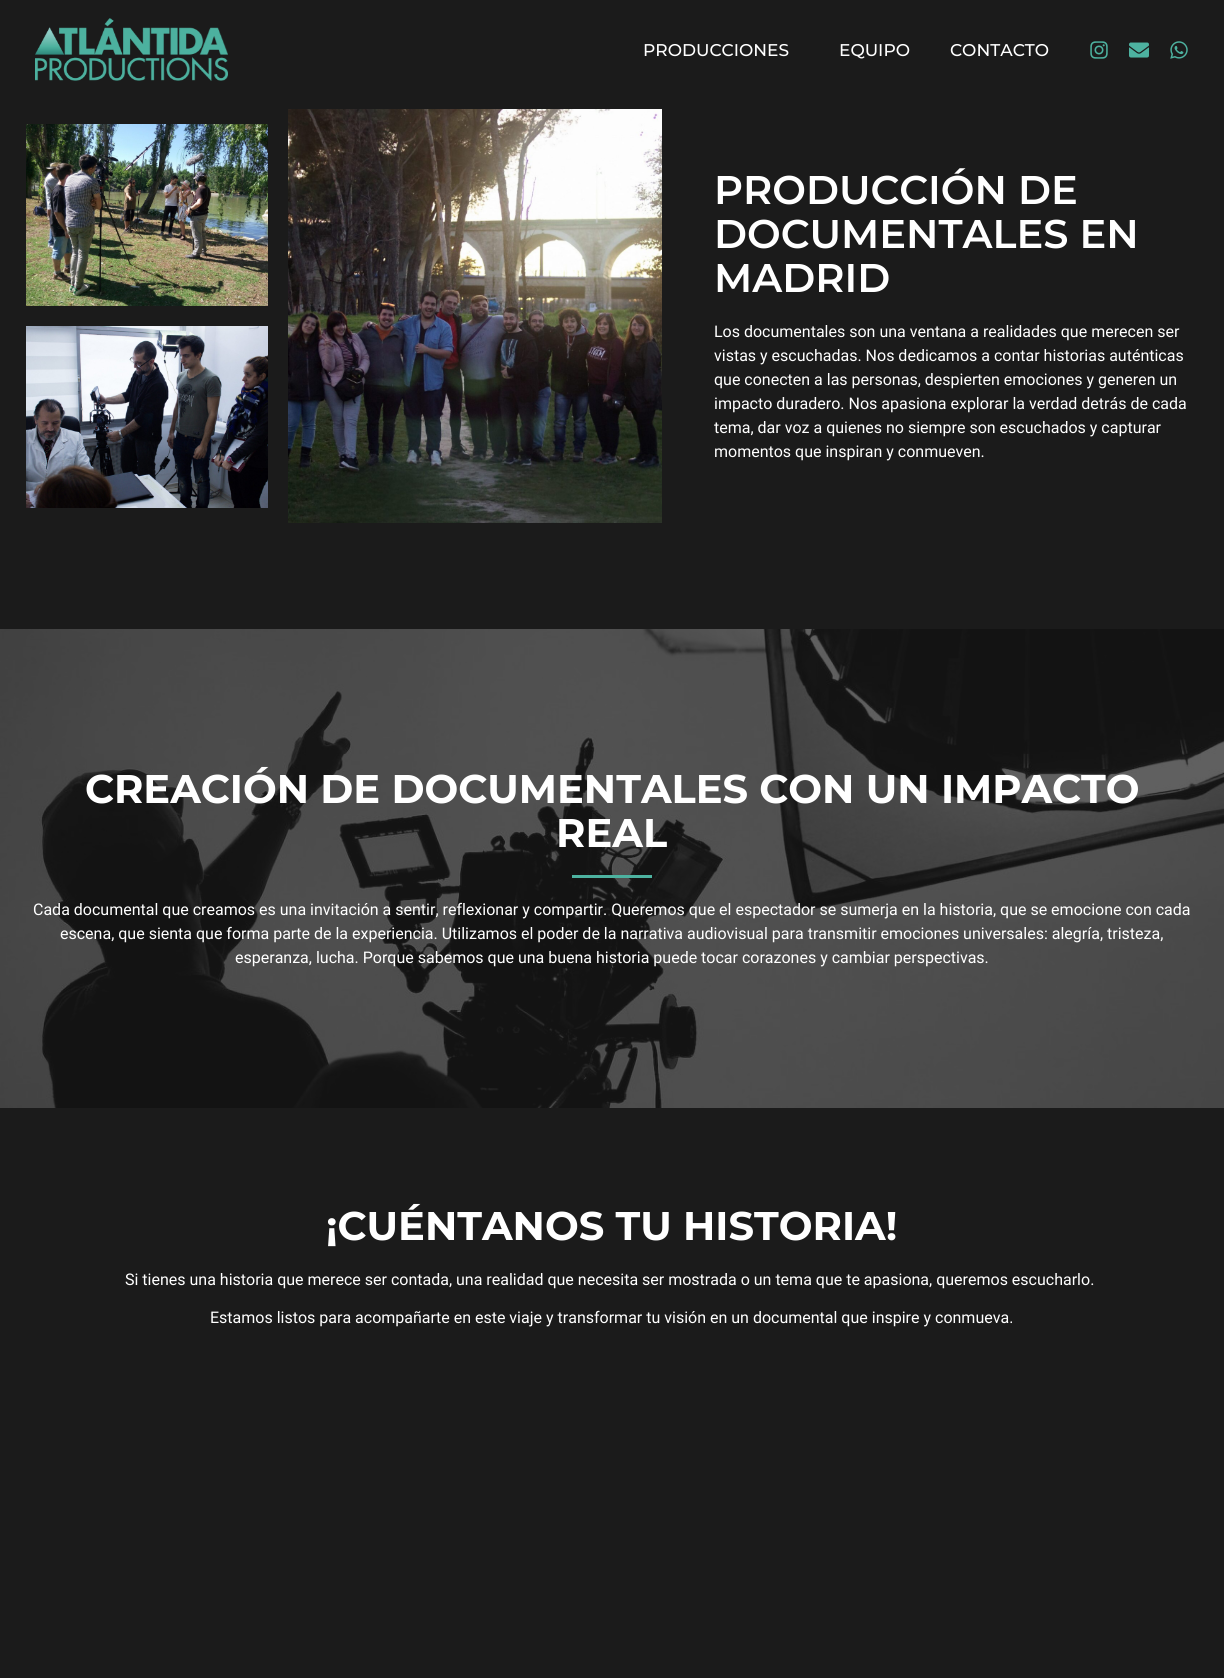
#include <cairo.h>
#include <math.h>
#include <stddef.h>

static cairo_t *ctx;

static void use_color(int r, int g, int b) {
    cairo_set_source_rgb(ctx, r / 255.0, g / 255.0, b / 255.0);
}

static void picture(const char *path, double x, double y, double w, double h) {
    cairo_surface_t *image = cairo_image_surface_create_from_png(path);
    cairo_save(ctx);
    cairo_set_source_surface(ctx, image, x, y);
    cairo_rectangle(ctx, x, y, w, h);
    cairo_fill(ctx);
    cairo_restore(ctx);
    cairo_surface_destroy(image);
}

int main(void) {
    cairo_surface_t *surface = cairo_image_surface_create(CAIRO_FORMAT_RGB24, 1224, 1678);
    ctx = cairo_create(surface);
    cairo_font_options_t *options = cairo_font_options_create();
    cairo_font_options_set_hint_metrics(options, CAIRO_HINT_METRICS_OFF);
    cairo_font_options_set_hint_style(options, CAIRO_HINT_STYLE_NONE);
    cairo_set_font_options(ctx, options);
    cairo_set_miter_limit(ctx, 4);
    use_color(27, 27, 27);
    cairo_paint(ctx);
    picture("img1.png", 35, 18, 193, 63);
    cairo_select_font_face(ctx, "Montserrat Medium", CAIRO_FONT_SLANT_NORMAL, CAIRO_FONT_WEIGHT_NORMAL);
    cairo_set_font_size(ctx, 17);
    use_color(255, 255, 255);
    cairo_move_to(ctx, 643, 56);
    cairo_show_text(ctx, "PRODUCCIONES");
    cairo_move_to(ctx, 839, 56);
    cairo_show_text(ctx, "EQUIPO");
    cairo_move_to(ctx, 950, 56);
    cairo_show_text(ctx, "CONTACTO");
    picture("img2.png", 1090, 41, 18, 18);
    picture("img3.png", 1129, 42, 20, 16);
    picture("img4.png", 1170, 41, 18, 18);
    picture("img5.png", 26, 124, 242, 182);
    picture("img6.png", 26, 326, 242, 182);
    picture("img7.png", 288, 109, 374, 414);
    cairo_select_font_face(ctx, "Montserrat SemiBold", CAIRO_FONT_SLANT_NORMAL, CAIRO_FONT_WEIGHT_NORMAL);
    cairo_set_font_size(ctx, 40);
    cairo_move_to(ctx, 714, 204);
    cairo_show_text(ctx, "PRODUCCIÓN DE");
    cairo_move_to(ctx, 714, 248);
    cairo_show_text(ctx, "DOCUMENTALES EN");
    cairo_move_to(ctx, 714, 292);
    cairo_show_text(ctx, "MADRID");
    cairo_select_font_face(ctx, "Roboto", CAIRO_FONT_SLANT_NORMAL, CAIRO_FONT_WEIGHT_NORMAL);
    cairo_set_font_size(ctx, 16);
    cairo_move_to(ctx, 714, 337);
    cairo_show_text(ctx, "Los documentales son una ventana a realidades que merecen ser");
    cairo_move_to(ctx, 714, 361);
    cairo_show_text(ctx, "vistas y escuchadas. Nos dedicamos a contar historias auténticas");
    cairo_move_to(ctx, 714, 385);
    cairo_show_text(ctx, "que conecten a las personas, despierten emociones y generen un");
    cairo_move_to(ctx, 714, 409);
    cairo_show_text(ctx, "impacto duradero. Nos apasiona explorar la verdad detrás de cada");
    cairo_move_to(ctx, 714, 433);
    cairo_show_text(ctx, "tema, dar voz a quienes no siempre son escuchados y capturar");
    cairo_move_to(ctx, 714, 457);
    cairo_show_text(ctx, "momentos que inspiran y conmueven.");
    picture("img8.png", 0, 629, 1224, 479);
    cairo_select_font_face(ctx, "Montserrat", CAIRO_FONT_SLANT_NORMAL, CAIRO_FONT_WEIGHT_BOLD);
    cairo_set_font_size(ctx, 40);
    cairo_move_to(ctx, 85, 803);
    cairo_show_text(ctx, "CREACIÓN DE DOCUMENTALES CON UN IMPACTO");
    cairo_move_to(ctx, 556, 847);
    cairo_show_text(ctx, "REAL");
    use_color(77, 178, 160);
    cairo_rectangle(ctx, 572, 875, 80, 3);
    cairo_fill(ctx);
    cairo_select_font_face(ctx, "Roboto", CAIRO_FONT_SLANT_NORMAL, CAIRO_FONT_WEIGHT_NORMAL);
    cairo_set_font_size(ctx, 16);
    use_color(255, 255, 255);
    cairo_move_to(ctx, 33, 915);
    cairo_show_text(ctx, "Cada documental que creamos es una invitación a sentir, reflexionar y compartir. Queremos que el espectador se sumerja en la historia, que se emocione con cada");
    cairo_move_to(ctx, 60, 939);
    cairo_show_text(ctx, "escena, que sienta que forma parte de la experiencia. Utilizamos el poder de la narrativa audiovisual para transmitir emociones universales: alegría, tristeza,");
    cairo_move_to(ctx, 235, 963);
    cairo_show_text(ctx, "esperanza, lucha. Porque sabemos que una buena historia puede tocar corazones y cambiar perspectivas.");
    cairo_select_font_face(ctx, "Montserrat", CAIRO_FONT_SLANT_NORMAL, CAIRO_FONT_WEIGHT_BOLD);
    cairo_set_font_size(ctx, 40);
    cairo_move_to(ctx, 326, 1240);
    cairo_show_text(ctx, "¡CUÉNTANOS TU HISTORIA!");
    cairo_select_font_face(ctx, "Roboto", CAIRO_FONT_SLANT_NORMAL, CAIRO_FONT_WEIGHT_NORMAL);
    cairo_set_font_size(ctx, 16);
    cairo_move_to(ctx, 125, 1285);
    cairo_show_text(ctx, "Si tienes una historia que merece ser contada, una realidad que necesita ser mostrada o un tema que te apasiona, queremos escucharlo.");
    cairo_move_to(ctx, 210, 1323);
    cairo_show_text(ctx, "Estamos listos para acompañarte en este viaje y transformar tu visión en un documental que inspire y conmueva.");
    cairo_surface_write_to_png(surface, "result.png");
    cairo_font_options_destroy(options);
    cairo_destroy(ctx);
    cairo_surface_destroy(surface);
    return 0;
}
